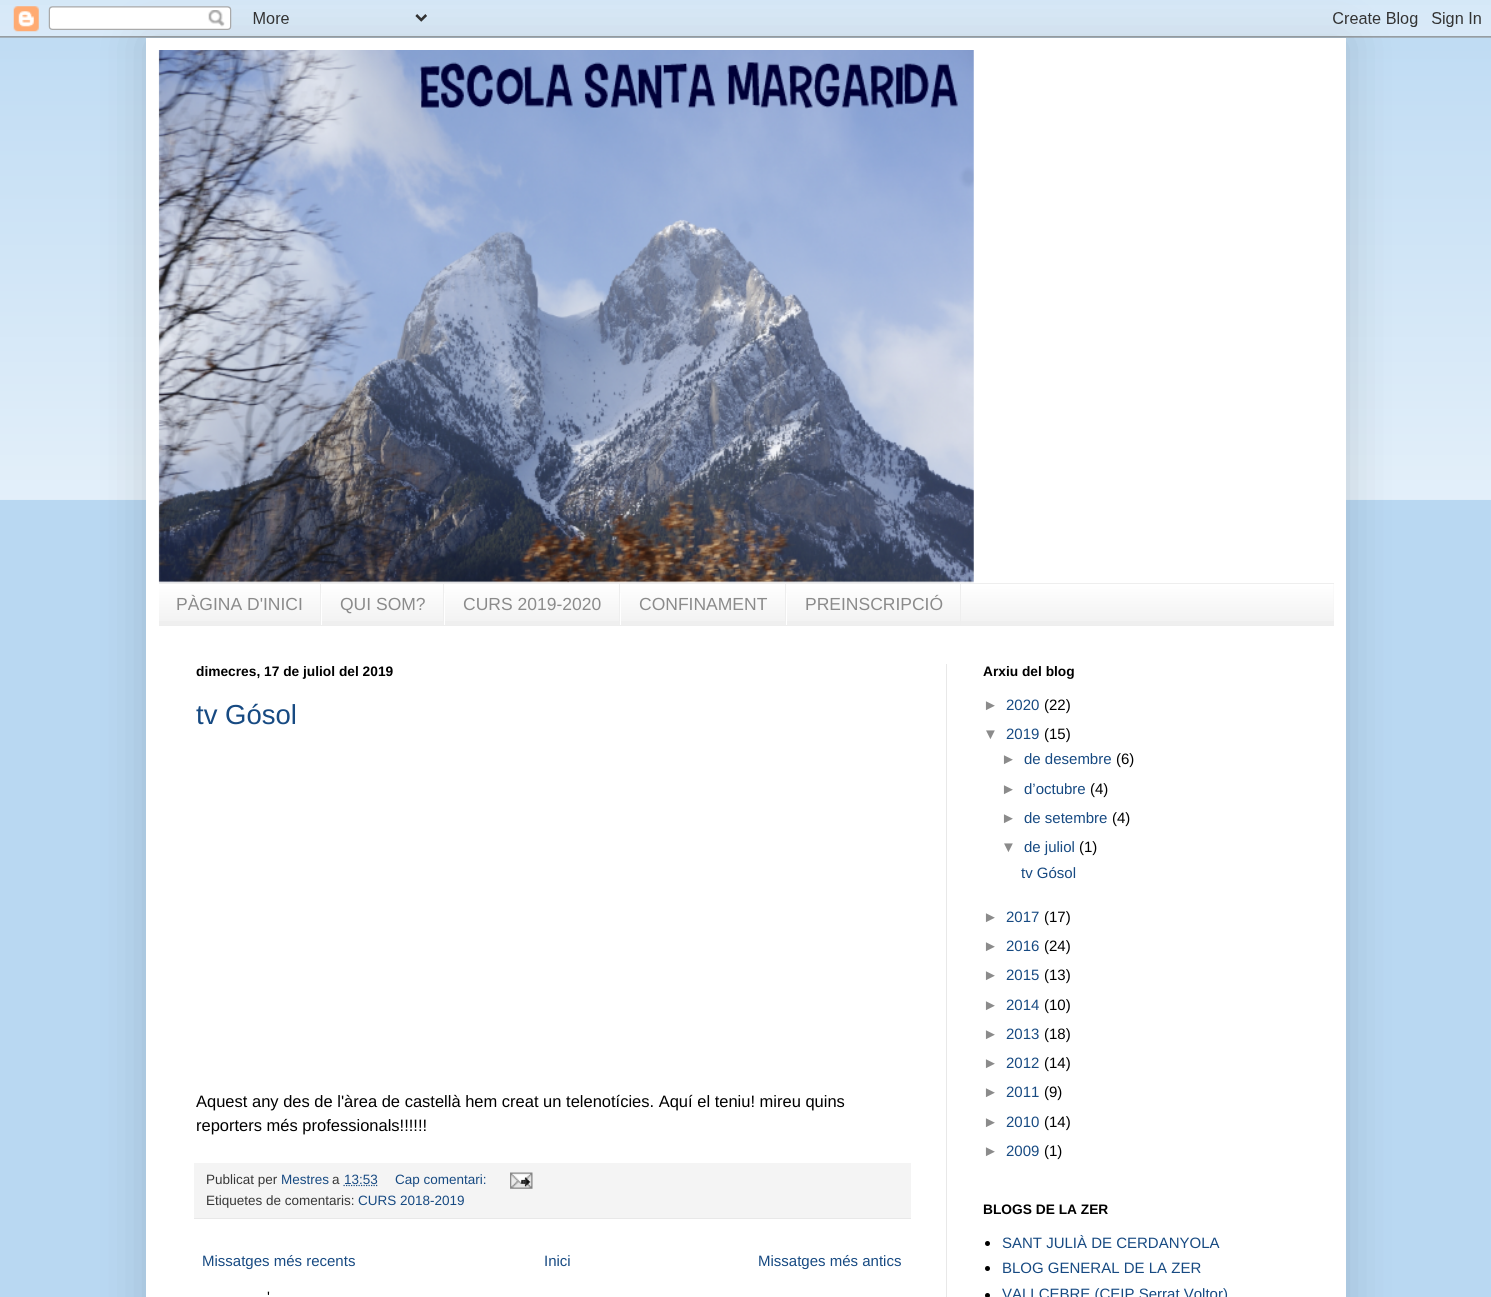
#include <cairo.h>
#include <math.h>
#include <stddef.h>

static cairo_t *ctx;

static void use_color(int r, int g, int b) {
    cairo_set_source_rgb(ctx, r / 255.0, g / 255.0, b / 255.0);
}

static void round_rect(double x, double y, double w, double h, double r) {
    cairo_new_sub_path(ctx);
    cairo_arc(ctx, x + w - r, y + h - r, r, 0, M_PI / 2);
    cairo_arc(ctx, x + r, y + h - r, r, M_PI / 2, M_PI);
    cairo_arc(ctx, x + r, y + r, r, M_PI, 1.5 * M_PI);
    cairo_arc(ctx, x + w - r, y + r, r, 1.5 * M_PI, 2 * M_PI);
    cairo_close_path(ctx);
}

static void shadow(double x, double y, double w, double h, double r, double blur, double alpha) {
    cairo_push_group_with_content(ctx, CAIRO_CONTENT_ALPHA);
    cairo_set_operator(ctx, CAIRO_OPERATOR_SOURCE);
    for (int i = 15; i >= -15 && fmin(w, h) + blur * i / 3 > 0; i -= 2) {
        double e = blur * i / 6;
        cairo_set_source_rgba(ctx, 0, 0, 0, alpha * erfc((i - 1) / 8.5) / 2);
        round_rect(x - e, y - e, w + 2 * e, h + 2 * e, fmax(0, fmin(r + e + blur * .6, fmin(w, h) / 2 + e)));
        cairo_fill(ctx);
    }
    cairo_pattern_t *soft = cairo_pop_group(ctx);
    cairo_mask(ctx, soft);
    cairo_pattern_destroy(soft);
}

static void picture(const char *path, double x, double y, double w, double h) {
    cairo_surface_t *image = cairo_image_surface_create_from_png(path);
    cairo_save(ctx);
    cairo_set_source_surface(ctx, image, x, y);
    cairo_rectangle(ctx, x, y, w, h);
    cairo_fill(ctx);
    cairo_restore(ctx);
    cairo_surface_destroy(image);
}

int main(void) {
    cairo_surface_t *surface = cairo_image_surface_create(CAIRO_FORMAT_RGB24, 1491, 1297);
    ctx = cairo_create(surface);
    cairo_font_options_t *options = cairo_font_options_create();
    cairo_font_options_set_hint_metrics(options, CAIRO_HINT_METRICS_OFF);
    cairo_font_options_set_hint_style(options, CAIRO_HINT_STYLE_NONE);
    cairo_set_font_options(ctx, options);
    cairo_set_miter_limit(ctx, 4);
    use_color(185, 216, 242);
    cairo_paint(ctx);
    picture("img2.png", 0, 5, 1491, 495);
    use_color(0, 0, 0);
    shadow(146, 38, 1200, 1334, 0, 25, 0.15);
    picture("img1.png", 0, 0, 1491, 38);
    use_color(255, 255, 255);
    cairo_rectangle(ctx, 146, 38, 1200, 1259);
    cairo_fill(ctx);
    picture("img3.png", 158, 50, 816, 533);
    use_color(239, 239, 239);
    cairo_rectangle(ctx, 159, 584, 1175, 41);
    cairo_fill(ctx);
    picture("img4.png", 159, 584, 1175, 37);
    use_color(238, 238, 238);
    cairo_rectangle(ctx, 159, 583, 1175, 1);
    cairo_fill(ctx);
    cairo_rectangle(ctx, 159, 625, 1175, 1);
    cairo_fill(ctx);
    cairo_rectangle(ctx, 320, 584, 1, 41);
    cairo_fill(ctx);
    cairo_select_font_face(ctx, "Liberation Sans", CAIRO_FONT_SLANT_NORMAL, CAIRO_FONT_WEIGHT_NORMAL);
    cairo_set_font_size(ctx, 17.5);
    use_color(139, 139, 139);
    cairo_move_to(ctx, 176, 610);
    cairo_show_text(ctx, "PÀGINA D'INICI");
    use_color(238, 238, 238);
    cairo_rectangle(ctx, 443, 584, 1, 41);
    cairo_fill(ctx);
    use_color(255, 255, 255);
    cairo_rectangle(ctx, 321, 593, 1, 32);
    cairo_fill(ctx);
    use_color(139, 139, 139);
    cairo_move_to(ctx, 340, 610);
    cairo_show_text(ctx, "QUI SOM?");
    use_color(238, 238, 238);
    cairo_rectangle(ctx, 619, 584, 1, 41);
    cairo_fill(ctx);
    use_color(255, 255, 255);
    cairo_rectangle(ctx, 444, 593, 1, 32);
    cairo_fill(ctx);
    use_color(139, 139, 139);
    cairo_move_to(ctx, 463, 610);
    cairo_show_text(ctx, "CURS 2019-2020");
    use_color(238, 238, 238);
    cairo_rectangle(ctx, 785, 584, 1, 41);
    cairo_fill(ctx);
    use_color(255, 255, 255);
    cairo_rectangle(ctx, 620, 593, 1, 32);
    cairo_fill(ctx);
    use_color(139, 139, 139);
    cairo_move_to(ctx, 639, 610);
    cairo_show_text(ctx, "CONFINAMENT");
    use_color(238, 238, 238);
    cairo_rectangle(ctx, 960, 584, 1, 41);
    cairo_fill(ctx);
    use_color(255, 255, 255);
    cairo_rectangle(ctx, 786, 593, 1, 32);
    cairo_fill(ctx);
    use_color(139, 139, 139);
    cairo_move_to(ctx, 805, 610);
    cairo_show_text(ctx, "PREINSCRIPCIÓ");
    use_color(232, 232, 232);
    cairo_rectangle(ctx, 946, 664, 1, 633);
    cairo_fill(ctx);
    cairo_select_font_face(ctx, "Liberation Sans", CAIRO_FONT_SLANT_NORMAL, CAIRO_FONT_WEIGHT_BOLD);
    cairo_set_font_size(ctx, 13.75);
    use_color(0, 0, 0);
    cairo_move_to(ctx, 196, 676);
    cairo_show_text(ctx, "dimecres, 17 de juliol del 2019");
    cairo_select_font_face(ctx, "Liberation Sans", CAIRO_FONT_SLANT_NORMAL, CAIRO_FONT_WEIGHT_NORMAL);
    cairo_set_font_size(ctx, 27.5);
    use_color(23, 74, 130);
    cairo_move_to(ctx, 196, 724);
    cairo_show_text(ctx, "tv Gósol");
    cairo_set_font_size(ctx, 16.5);
    use_color(0, 0, 0);
    cairo_move_to(ctx, 196, 1107);
    cairo_show_text(ctx, "Aquest any des de l'àrea de castellà hem creat un telenotícies. Aquí el teniu! mireu quins");
    cairo_move_to(ctx, 196, 1131);
    cairo_show_text(ctx, "reporters més professionals!!!!!!");
    use_color(244, 244, 244);
    cairo_rectangle(ctx, 194, 1163, 717, 55);
    cairo_fill(ctx);
    use_color(232, 232, 232);
    cairo_rectangle(ctx, 194, 1218, 717, 1);
    cairo_fill(ctx);
    cairo_set_font_size(ctx, 13.5);
    use_color(55, 55, 55);
    cairo_move_to(ctx, 206, 1184);
    cairo_show_text(ctx, "Publicat per");
    use_color(23, 74, 130);
    cairo_move_to(ctx, 281, 1184);
    cairo_show_text(ctx, "Mestres");
    use_color(55, 55, 55);
    cairo_move_to(ctx, 332, 1184);
    cairo_show_text(ctx, "a");
    cairo_new_path(ctx);
    cairo_move_to(ctx, 343.5, 1185.5);
    cairo_line_to(ctx, 377.5, 1185.5);
    use_color(23, 74, 130);
    cairo_set_line_width(ctx, 1.2);
    cairo_set_dash(ctx, (double[]){1.25, 1.25}, 2, 0);
    cairo_stroke(ctx);
    cairo_move_to(ctx, 344, 1184);
    cairo_show_text(ctx, "13:53");
    cairo_move_to(ctx, 395, 1184);
    cairo_show_text(ctx, "Cap comentari:");
    picture("img5.png", 510, 1172, 23, 17);
    use_color(55, 55, 55);
    cairo_move_to(ctx, 206, 1205);
    cairo_show_text(ctx, "Etiquetes de comentaris:");
    use_color(23, 74, 130);
    cairo_move_to(ctx, 358, 1205);
    cairo_show_text(ctx, "CURS 2018-2019");
    cairo_set_font_size(ctx, 15);
    cairo_move_to(ctx, 202, 1266);
    cairo_show_text(ctx, "Missatges més recents");
    cairo_move_to(ctx, 544, 1266);
    cairo_show_text(ctx, "Inici");
    cairo_move_to(ctx, 758, 1266);
    cairo_show_text(ctx, "Missatges més antics");
    use_color(0, 0, 0);
    cairo_move_to(ctx, 267, 1302);
    cairo_show_text(ctx, "'");
    cairo_select_font_face(ctx, "Liberation Sans", CAIRO_FONT_SLANT_NORMAL, CAIRO_FONT_WEIGHT_BOLD);
    cairo_set_font_size(ctx, 13.75);
    cairo_move_to(ctx, 983, 676);
    cairo_show_text(ctx, "Arxiu del blog");
    cairo_select_font_face(ctx, "Liberation Sans", CAIRO_FONT_SLANT_NORMAL, CAIRO_FONT_WEIGHT_NORMAL);
    cairo_set_font_size(ctx, 15);
    use_color(139, 139, 139);
    cairo_move_to(ctx, 983, 710);
    cairo_show_text(ctx, "►");
    use_color(23, 74, 130);
    cairo_move_to(ctx, 1006, 710);
    cairo_show_text(ctx, "2020");
    use_color(0, 0, 0);
    cairo_move_to(ctx, 1044, 710);
    cairo_show_text(ctx, "(22)");
    use_color(139, 139, 139);
    cairo_move_to(ctx, 983, 739);
    cairo_show_text(ctx, "▼");
    use_color(23, 74, 130);
    cairo_move_to(ctx, 1006, 739);
    cairo_show_text(ctx, "2019");
    use_color(0, 0, 0);
    cairo_move_to(ctx, 1044, 739);
    cairo_show_text(ctx, "(15)");
    use_color(139, 139, 139);
    cairo_move_to(ctx, 1001, 764);
    cairo_show_text(ctx, "►");
    use_color(23, 74, 130);
    cairo_move_to(ctx, 1024, 764);
    cairo_show_text(ctx, "de desembre");
    use_color(0, 0, 0);
    cairo_move_to(ctx, 1116, 764);
    cairo_show_text(ctx, "(6)");
    use_color(139, 139, 139);
    cairo_move_to(ctx, 1001, 794);
    cairo_show_text(ctx, "►");
    use_color(23, 74, 130);
    cairo_move_to(ctx, 1024, 794);
    cairo_show_text(ctx, "d’octubre");
    use_color(0, 0, 0);
    cairo_move_to(ctx, 1090, 794);
    cairo_show_text(ctx, "(4)");
    use_color(139, 139, 139);
    cairo_move_to(ctx, 1001, 823);
    cairo_show_text(ctx, "►");
    use_color(23, 74, 130);
    cairo_move_to(ctx, 1024, 823);
    cairo_show_text(ctx, "de setembre");
    use_color(0, 0, 0);
    cairo_move_to(ctx, 1112, 823);
    cairo_show_text(ctx, "(4)");
    use_color(139, 139, 139);
    cairo_move_to(ctx, 1001, 852);
    cairo_show_text(ctx, "▼");
    use_color(23, 74, 130);
    cairo_move_to(ctx, 1024, 852);
    cairo_show_text(ctx, "de juliol");
    use_color(0, 0, 0);
    cairo_move_to(ctx, 1079, 852);
    cairo_show_text(ctx, "(1)");
    use_color(23, 74, 130);
    cairo_move_to(ctx, 1021, 878);
    cairo_show_text(ctx, "tv Gósol");
    use_color(139, 139, 139);
    cairo_move_to(ctx, 983, 922);
    cairo_show_text(ctx, "►");
    use_color(23, 74, 130);
    cairo_move_to(ctx, 1006, 922);
    cairo_show_text(ctx, "2017");
    use_color(0, 0, 0);
    cairo_move_to(ctx, 1044, 922);
    cairo_show_text(ctx, "(17)");
    use_color(139, 139, 139);
    cairo_move_to(ctx, 983, 951);
    cairo_show_text(ctx, "►");
    use_color(23, 74, 130);
    cairo_move_to(ctx, 1006, 951);
    cairo_show_text(ctx, "2016");
    use_color(0, 0, 0);
    cairo_move_to(ctx, 1044, 951);
    cairo_show_text(ctx, "(24)");
    use_color(139, 139, 139);
    cairo_move_to(ctx, 983, 980);
    cairo_show_text(ctx, "►");
    use_color(23, 74, 130);
    cairo_move_to(ctx, 1006, 980);
    cairo_show_text(ctx, "2015");
    use_color(0, 0, 0);
    cairo_move_to(ctx, 1044, 980);
    cairo_show_text(ctx, "(13)");
    use_color(139, 139, 139);
    cairo_move_to(ctx, 983, 1010);
    cairo_show_text(ctx, "►");
    use_color(23, 74, 130);
    cairo_move_to(ctx, 1006, 1010);
    cairo_show_text(ctx, "2014");
    use_color(0, 0, 0);
    cairo_move_to(ctx, 1044, 1010);
    cairo_show_text(ctx, "(10)");
    use_color(139, 139, 139);
    cairo_move_to(ctx, 983, 1039);
    cairo_show_text(ctx, "►");
    use_color(23, 74, 130);
    cairo_move_to(ctx, 1006, 1039);
    cairo_show_text(ctx, "2013");
    use_color(0, 0, 0);
    cairo_move_to(ctx, 1044, 1039);
    cairo_show_text(ctx, "(18)");
    use_color(139, 139, 139);
    cairo_move_to(ctx, 983, 1068);
    cairo_show_text(ctx, "►");
    use_color(23, 74, 130);
    cairo_move_to(ctx, 1006, 1068);
    cairo_show_text(ctx, "2012");
    use_color(0, 0, 0);
    cairo_move_to(ctx, 1044, 1068);
    cairo_show_text(ctx, "(14)");
    use_color(139, 139, 139);
    cairo_move_to(ctx, 983, 1097);
    cairo_show_text(ctx, "►");
    use_color(23, 74, 130);
    cairo_move_to(ctx, 1006, 1097);
    cairo_show_text(ctx, "2011");
    use_color(0, 0, 0);
    cairo_move_to(ctx, 1044, 1097);
    cairo_show_text(ctx, "(9)");
    use_color(139, 139, 139);
    cairo_move_to(ctx, 983, 1127);
    cairo_show_text(ctx, "►");
    use_color(23, 74, 130);
    cairo_move_to(ctx, 1006, 1127);
    cairo_show_text(ctx, "2010");
    use_color(0, 0, 0);
    cairo_move_to(ctx, 1044, 1127);
    cairo_show_text(ctx, "(14)");
    use_color(139, 139, 139);
    cairo_move_to(ctx, 983, 1156);
    cairo_show_text(ctx, "►");
    use_color(23, 74, 130);
    cairo_move_to(ctx, 1006, 1156);
    cairo_show_text(ctx, "2009");
    use_color(0, 0, 0);
    cairo_move_to(ctx, 1044, 1156);
    cairo_show_text(ctx, "(1)");
    cairo_select_font_face(ctx, "Liberation Sans", CAIRO_FONT_SLANT_NORMAL, CAIRO_FONT_WEIGHT_BOLD);
    cairo_set_font_size(ctx, 13.75);
    cairo_move_to(ctx, 983, 1214);
    cairo_show_text(ctx, "BLOGS DE LA ZER");
    cairo_new_path(ctx);
    cairo_arc(ctx, 987.5, 1243.5, 2.5, 0, 2 * M_PI);
    cairo_fill(ctx);
    cairo_select_font_face(ctx, "Liberation Sans", CAIRO_FONT_SLANT_NORMAL, CAIRO_FONT_WEIGHT_NORMAL);
    cairo_set_font_size(ctx, 15);
    use_color(23, 74, 130);
    cairo_move_to(ctx, 1002, 1248);
    cairo_show_text(ctx, "SANT JULIÀ DE CERDANYOLA");
    use_color(0, 0, 0);
    cairo_new_path(ctx);
    cairo_arc(ctx, 987.5, 1268.5, 2.5, 0, 2 * M_PI);
    cairo_fill(ctx);
    use_color(23, 74, 130);
    cairo_move_to(ctx, 1002, 1273);
    cairo_show_text(ctx, "BLOG GENERAL DE LA ZER");
    use_color(0, 0, 0);
    cairo_new_path(ctx);
    cairo_arc(ctx, 987.5, 1295.5, 2.5, 0, 2 * M_PI);
    cairo_fill(ctx);
    use_color(23, 74, 130);
    cairo_move_to(ctx, 1002, 1299);
    cairo_show_text(ctx, "VALLCEBRE (CEIP Serrat Voltor)");
    cairo_surface_write_to_png(surface, "result.png");
    cairo_font_options_destroy(options);
    cairo_destroy(ctx);
    cairo_surface_destroy(surface);
    return 0;
}
